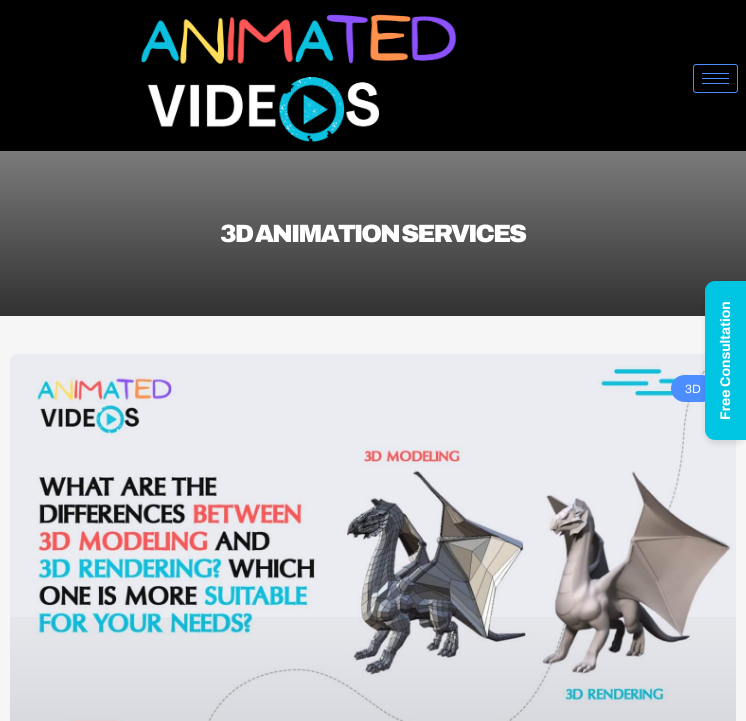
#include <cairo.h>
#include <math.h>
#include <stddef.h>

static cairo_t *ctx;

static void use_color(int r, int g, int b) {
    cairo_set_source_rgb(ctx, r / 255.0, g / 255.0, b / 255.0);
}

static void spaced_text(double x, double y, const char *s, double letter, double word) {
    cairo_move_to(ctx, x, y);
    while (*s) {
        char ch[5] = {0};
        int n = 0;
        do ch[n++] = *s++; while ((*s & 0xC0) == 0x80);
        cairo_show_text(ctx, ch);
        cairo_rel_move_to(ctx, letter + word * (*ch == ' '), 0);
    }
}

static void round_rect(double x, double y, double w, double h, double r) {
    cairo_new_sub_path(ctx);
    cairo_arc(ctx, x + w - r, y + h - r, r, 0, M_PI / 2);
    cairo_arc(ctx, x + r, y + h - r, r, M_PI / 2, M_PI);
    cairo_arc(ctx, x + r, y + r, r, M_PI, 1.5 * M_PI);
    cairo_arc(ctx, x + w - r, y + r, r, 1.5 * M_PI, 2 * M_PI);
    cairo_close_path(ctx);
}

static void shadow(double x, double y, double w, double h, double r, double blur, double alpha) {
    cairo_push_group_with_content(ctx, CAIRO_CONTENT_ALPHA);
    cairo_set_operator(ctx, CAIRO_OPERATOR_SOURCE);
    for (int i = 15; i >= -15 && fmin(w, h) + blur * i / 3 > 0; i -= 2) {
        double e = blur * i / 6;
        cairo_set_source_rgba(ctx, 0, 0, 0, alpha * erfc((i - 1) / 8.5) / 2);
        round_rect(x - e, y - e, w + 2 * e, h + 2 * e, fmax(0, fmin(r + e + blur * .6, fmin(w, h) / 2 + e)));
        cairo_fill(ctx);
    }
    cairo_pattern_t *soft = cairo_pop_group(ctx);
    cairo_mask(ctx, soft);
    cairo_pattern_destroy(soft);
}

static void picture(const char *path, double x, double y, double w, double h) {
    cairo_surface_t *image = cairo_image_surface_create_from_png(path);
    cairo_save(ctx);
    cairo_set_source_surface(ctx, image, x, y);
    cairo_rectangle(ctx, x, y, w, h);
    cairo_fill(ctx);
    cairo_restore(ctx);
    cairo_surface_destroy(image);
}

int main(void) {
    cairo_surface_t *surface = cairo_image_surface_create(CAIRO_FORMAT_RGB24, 746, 721);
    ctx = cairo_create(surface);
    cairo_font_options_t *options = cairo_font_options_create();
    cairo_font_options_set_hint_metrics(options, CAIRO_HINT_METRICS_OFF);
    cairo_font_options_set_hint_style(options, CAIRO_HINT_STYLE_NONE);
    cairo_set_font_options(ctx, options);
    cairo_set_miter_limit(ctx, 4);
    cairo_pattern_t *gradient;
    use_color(246, 246, 246);
    cairo_paint(ctx);
    use_color(0, 0, 0);
    cairo_rectangle(ctx, 0, 0, 746, 151);
    cairo_fill(ctx);
    picture("img1.png", 141, 14, 316, 128);
    round_rect(693.5, 64.5, 44, 28, 2.5);
    use_color(76, 141, 255);
    cairo_set_line_width(ctx, 1);
    cairo_stroke(ctx);
    cairo_rectangle(ctx, 702, 73, 27, 1);
    cairo_fill(ctx);
    cairo_rectangle(ctx, 702, 78, 27, 1);
    cairo_fill(ctx);
    cairo_rectangle(ctx, 702, 83, 27, 1);
    cairo_fill(ctx);
    gradient = cairo_pattern_create_linear(373, 151, 373, 316);
    cairo_pattern_add_color_stop_rgba(gradient, 0, 0.482, 0.482, 0.482, 1);
    cairo_pattern_add_color_stop_rgba(gradient, 1, 0.192, 0.192, 0.192, 1);
    cairo_set_source(ctx, gradient);
    cairo_pattern_destroy(gradient);
    cairo_rectangle(ctx, 0, 151, 746, 165);
    cairo_fill(ctx);
    cairo_select_font_face(ctx, "Archivo Black", CAIRO_FONT_SLANT_NORMAL, CAIRO_FONT_WEIGHT_NORMAL);
    cairo_set_font_size(ctx, 25);
    use_color(255, 255, 255);
    spaced_text(220, 242, "3D ANIMATION SERVICES", -2, 0);
    picture("img2.png", 10, 354, 726, 367);
    gradient = cairo_pattern_create_linear(373, 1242, 373, 354);
    cairo_pattern_add_color_stop_rgba(gradient, 0, 0, 0, 0, 0.35);
    cairo_pattern_add_color_stop_rgba(gradient, 0.75, 0, 0, 0, 0);
    cairo_set_source(ctx, gradient);
    cairo_pattern_destroy(gradient);
    cairo_rectangle(ctx, 10, 617, 726, 104);
    cairo_fill(ctx);
    use_color(76, 141, 255);
    round_rect(671, 375, 44, 27, 13.5);
    cairo_fill(ctx);
    cairo_select_font_face(ctx, "Archivo", CAIRO_FONT_SLANT_NORMAL, CAIRO_FONT_WEIGHT_NORMAL);
    cairo_set_font_size(ctx, 12);
    use_color(255, 255, 255);
    cairo_move_to(ctx, 685, 393);
    cairo_show_text(ctx, "3D");
    use_color(0, 0, 0);
    shadow(705, 285, 41, 159, 10, 3, 0.1);
    use_color(0, 197, 226);
    cairo_new_path(ctx);
    cairo_move_to(ctx, 746, 440);
    cairo_line_to(ctx, 715, 440);
    cairo_curve_to(ctx, 709, 440, 705, 435, 705, 430);
    cairo_line_to(ctx, 705, 291);
    cairo_curve_to(ctx, 705, 286, 709, 281, 715, 281);
    cairo_line_to(ctx, 746, 281);
    cairo_close_path(ctx);
    cairo_fill(ctx);
    cairo_select_font_face(ctx, "Archivo", CAIRO_FONT_SLANT_NORMAL, CAIRO_FONT_WEIGHT_BOLD);
    cairo_set_font_size(ctx, 14);
    use_color(255, 255, 255);
    cairo_save(ctx);
    cairo_translate(ctx, 730, 420);
    cairo_rotate(ctx, -90 * M_PI / 180);
    cairo_move_to(ctx, 0, 0);
    cairo_show_text(ctx, "Free Consultation");
    cairo_restore(ctx);
    cairo_surface_write_to_png(surface, "result.png");
    cairo_font_options_destroy(options);
    cairo_destroy(ctx);
    cairo_surface_destroy(surface);
    return 0;
}
